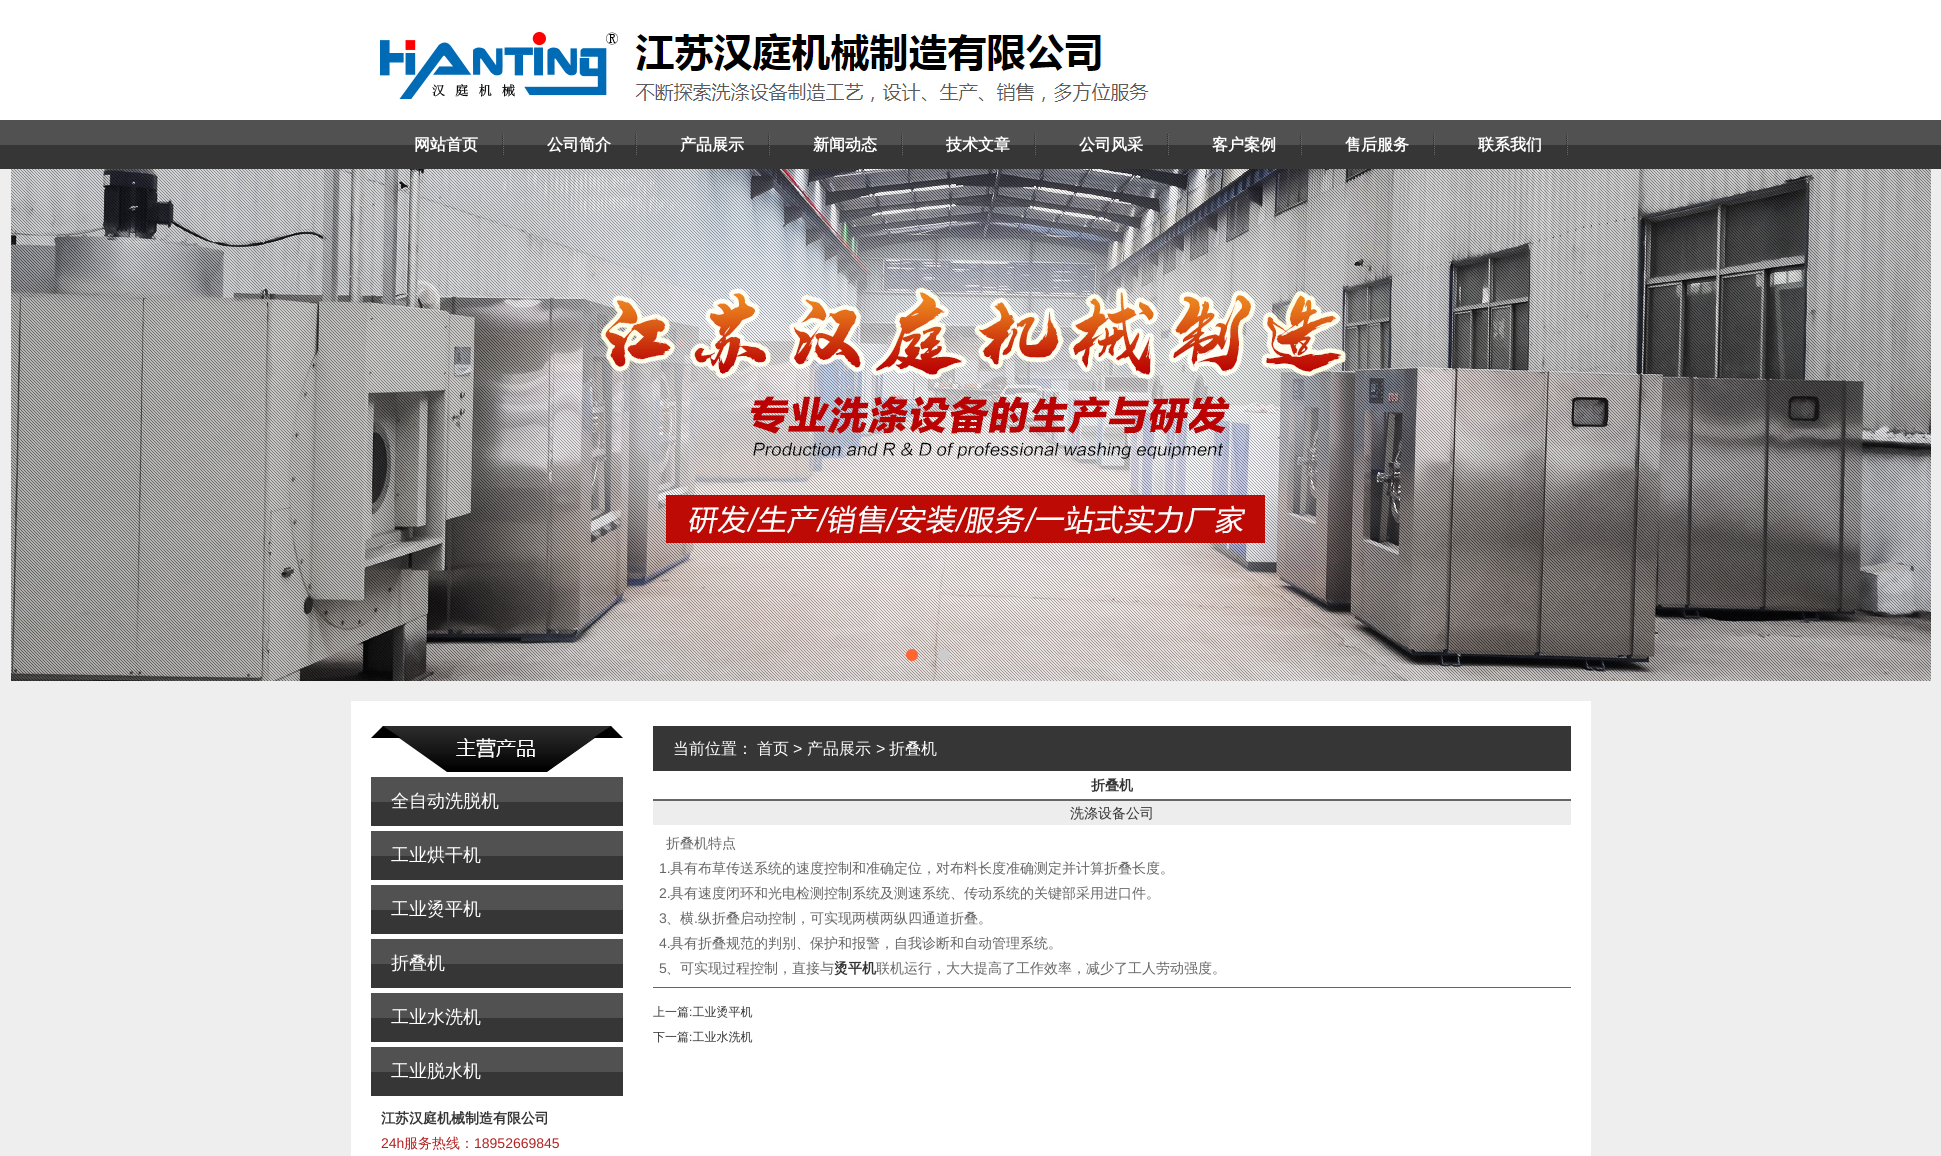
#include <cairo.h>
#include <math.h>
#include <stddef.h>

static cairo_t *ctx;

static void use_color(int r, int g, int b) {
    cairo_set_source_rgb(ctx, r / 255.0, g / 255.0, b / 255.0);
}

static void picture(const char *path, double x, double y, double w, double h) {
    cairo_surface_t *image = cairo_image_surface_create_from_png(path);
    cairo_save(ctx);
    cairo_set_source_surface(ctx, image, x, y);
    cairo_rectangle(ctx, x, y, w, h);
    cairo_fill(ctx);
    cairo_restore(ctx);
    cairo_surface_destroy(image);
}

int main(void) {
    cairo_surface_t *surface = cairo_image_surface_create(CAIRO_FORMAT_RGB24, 1941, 1156);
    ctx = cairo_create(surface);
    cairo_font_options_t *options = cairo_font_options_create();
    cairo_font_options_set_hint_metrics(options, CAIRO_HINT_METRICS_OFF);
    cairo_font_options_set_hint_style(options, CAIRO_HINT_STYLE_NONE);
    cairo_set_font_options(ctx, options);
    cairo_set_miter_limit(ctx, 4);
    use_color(238, 238, 238);
    cairo_paint(ctx);
    use_color(255, 255, 255);
    cairo_rectangle(ctx, 0, 0, 1941, 120);
    cairo_fill(ctx);
    picture("img1.png", 380, 28, 769, 79);
    picture("img2.png", 0, 120, 1941, 49);
    picture("img3.png", 502, 134, 2, 21);
    cairo_select_font_face(ctx, "WenQuanYi Zen Hei", CAIRO_FONT_SLANT_NORMAL, CAIRO_FONT_WEIGHT_BOLD);
    cairo_set_font_size(ctx, 16);
    cairo_move_to(ctx, 414, 150);
    cairo_show_text(ctx, "网站首页");
    picture("img3.png", 635, 134, 2, 21);
    cairo_move_to(ctx, 547, 150);
    cairo_show_text(ctx, "公司简介");
    picture("img3.png", 768, 134, 2, 21);
    cairo_move_to(ctx, 680, 150);
    cairo_show_text(ctx, "产品展示");
    picture("img3.png", 901, 134, 2, 21);
    cairo_move_to(ctx, 813, 150);
    cairo_show_text(ctx, "新闻动态");
    picture("img3.png", 1034, 134, 2, 21);
    cairo_move_to(ctx, 946, 150);
    cairo_show_text(ctx, "技术文章");
    picture("img3.png", 1167, 134, 2, 21);
    cairo_move_to(ctx, 1079, 150);
    cairo_show_text(ctx, "公司风采");
    picture("img3.png", 1300, 134, 2, 21);
    cairo_move_to(ctx, 1212, 150);
    cairo_show_text(ctx, "客户案例");
    picture("img3.png", 1433, 134, 2, 21);
    cairo_move_to(ctx, 1345, 150);
    cairo_show_text(ctx, "售后服务");
    picture("img3.png", 1566, 134, 2, 21);
    cairo_move_to(ctx, 1478, 150);
    cairo_show_text(ctx, "联系我们");
    picture("img4.png", 11, 169, 1920, 512);
    use_color(255, 102, 51);
    cairo_arc(ctx, 912, 655, 6, 0, 2 * M_PI);
    cairo_fill(ctx);
    use_color(204, 204, 204);
    cairo_arc(ctx, 944, 655, 6, 0, 2 * M_PI);
    cairo_fill(ctx);
    use_color(255, 255, 255);
    cairo_rectangle(ctx, 351, 701, 1240, 455);
    cairo_fill(ctx);
    picture("img5.png", 371, 726, 252, 46);
    picture("img6.png", 371, 777, 252, 49);
    cairo_select_font_face(ctx, "WenQuanYi Zen Hei Medium", CAIRO_FONT_SLANT_NORMAL, CAIRO_FONT_WEIGHT_NORMAL);
    cairo_set_font_size(ctx, 18);
    cairo_move_to(ctx, 391, 807);
    cairo_show_text(ctx, "全自动洗脱机");
    picture("img6.png", 371, 831, 252, 49);
    cairo_move_to(ctx, 391, 861);
    cairo_show_text(ctx, "工业烘干机");
    picture("img6.png", 371, 885, 252, 49);
    cairo_move_to(ctx, 391, 915);
    cairo_show_text(ctx, "工业烫平机");
    picture("img6.png", 371, 939, 252, 49);
    cairo_move_to(ctx, 391, 969);
    cairo_show_text(ctx, "折叠机");
    picture("img6.png", 371, 993, 252, 49);
    cairo_move_to(ctx, 391, 1023);
    cairo_show_text(ctx, "工业水洗机");
    picture("img6.png", 371, 1047, 252, 49);
    cairo_move_to(ctx, 391, 1077);
    cairo_show_text(ctx, "工业脱水机");
    cairo_select_font_face(ctx, "WenQuanYi Zen Hei", CAIRO_FONT_SLANT_NORMAL, CAIRO_FONT_WEIGHT_BOLD);
    cairo_set_font_size(ctx, 14);
    use_color(51, 51, 51);
    cairo_move_to(ctx, 381, 1123);
    cairo_show_text(ctx, "江苏汉庭机械制造有限公司");
    cairo_select_font_face(ctx, "Liberation Sans", CAIRO_FONT_SLANT_NORMAL, CAIRO_FONT_WEIGHT_NORMAL);
    use_color(178, 34, 34);
    cairo_move_to(ctx, 381, 1148);
    cairo_show_text(ctx, "24h");
    cairo_select_font_face(ctx, "WenQuanYi Zen Hei Medium", CAIRO_FONT_SLANT_NORMAL, CAIRO_FONT_WEIGHT_NORMAL);
    cairo_move_to(ctx, 404, 1148);
    cairo_show_text(ctx, "服务热线：");
    cairo_select_font_face(ctx, "Liberation Sans", CAIRO_FONT_SLANT_NORMAL, CAIRO_FONT_WEIGHT_NORMAL);
    cairo_move_to(ctx, 474, 1148);
    cairo_show_text(ctx, "18952669845");
    use_color(54, 54, 54);
    cairo_rectangle(ctx, 653, 726, 918, 45);
    cairo_fill(ctx);
    cairo_select_font_face(ctx, "WenQuanYi Zen Hei Medium", CAIRO_FONT_SLANT_NORMAL, CAIRO_FONT_WEIGHT_NORMAL);
    cairo_set_font_size(ctx, 16);
    use_color(255, 255, 255);
    cairo_move_to(ctx, 673, 754);
    cairo_show_text(ctx, "当前位置：");
    cairo_move_to(ctx, 757, 754);
    cairo_show_text(ctx, "首页");
    cairo_select_font_face(ctx, "Liberation Sans", CAIRO_FONT_SLANT_NORMAL, CAIRO_FONT_WEIGHT_NORMAL);
    cairo_move_to(ctx, 793, 754);
    cairo_show_text(ctx, ">");
    cairo_select_font_face(ctx, "WenQuanYi Zen Hei Medium", CAIRO_FONT_SLANT_NORMAL, CAIRO_FONT_WEIGHT_NORMAL);
    cairo_move_to(ctx, 807, 754);
    cairo_show_text(ctx, "产品展示");
    cairo_select_font_face(ctx, "Liberation Sans", CAIRO_FONT_SLANT_NORMAL, CAIRO_FONT_WEIGHT_NORMAL);
    cairo_move_to(ctx, 876, 754);
    cairo_show_text(ctx, ">");
    cairo_select_font_face(ctx, "WenQuanYi Zen Hei Medium", CAIRO_FONT_SLANT_NORMAL, CAIRO_FONT_WEIGHT_NORMAL);
    cairo_move_to(ctx, 889, 754);
    cairo_show_text(ctx, "折叠机");
    cairo_select_font_face(ctx, "WenQuanYi Zen Hei", CAIRO_FONT_SLANT_NORMAL, CAIRO_FONT_WEIGHT_BOLD);
    cairo_set_font_size(ctx, 14);
    use_color(51, 51, 51);
    cairo_move_to(ctx, 1091, 790);
    cairo_show_text(ctx, "折叠机");
    use_color(102, 102, 102);
    cairo_rectangle(ctx, 653, 799, 918, 2);
    cairo_fill(ctx);
    use_color(237, 237, 237);
    cairo_rectangle(ctx, 653, 801, 918, 24);
    cairo_fill(ctx);
    cairo_select_font_face(ctx, "WenQuanYi Zen Hei Medium", CAIRO_FONT_SLANT_NORMAL, CAIRO_FONT_WEIGHT_NORMAL);
    use_color(51, 51, 51);
    cairo_move_to(ctx, 1070, 818);
    cairo_show_text(ctx, "洗涤设备公司");
    use_color(102, 102, 102);
    cairo_move_to(ctx, 666, 848);
    cairo_show_text(ctx, "折叠机特点");
    cairo_select_font_face(ctx, "Liberation Sans", CAIRO_FONT_SLANT_NORMAL, CAIRO_FONT_WEIGHT_NORMAL);
    cairo_move_to(ctx, 659, 873);
    cairo_show_text(ctx, "1.");
    cairo_select_font_face(ctx, "WenQuanYi Zen Hei Medium", CAIRO_FONT_SLANT_NORMAL, CAIRO_FONT_WEIGHT_NORMAL);
    cairo_move_to(ctx, 670, 873);
    cairo_show_text(ctx, "具有布草传送系统的速度控制和准确定位，对布料长度准确测定并计算折叠长度。");
    cairo_select_font_face(ctx, "Liberation Sans", CAIRO_FONT_SLANT_NORMAL, CAIRO_FONT_WEIGHT_NORMAL);
    cairo_move_to(ctx, 659, 898);
    cairo_show_text(ctx, "2.");
    cairo_select_font_face(ctx, "WenQuanYi Zen Hei Medium", CAIRO_FONT_SLANT_NORMAL, CAIRO_FONT_WEIGHT_NORMAL);
    cairo_move_to(ctx, 670, 898);
    cairo_show_text(ctx, "具有速度闭环和光电检测控制系统及测速系统、传动系统的关键部采用进口件。");
    cairo_select_font_face(ctx, "Liberation Sans", CAIRO_FONT_SLANT_NORMAL, CAIRO_FONT_WEIGHT_NORMAL);
    cairo_move_to(ctx, 659, 923);
    cairo_show_text(ctx, "3");
    cairo_select_font_face(ctx, "WenQuanYi Zen Hei Medium", CAIRO_FONT_SLANT_NORMAL, CAIRO_FONT_WEIGHT_NORMAL);
    cairo_move_to(ctx, 666, 923);
    cairo_show_text(ctx, "、横");
    cairo_select_font_face(ctx, "Liberation Sans", CAIRO_FONT_SLANT_NORMAL, CAIRO_FONT_WEIGHT_NORMAL);
    cairo_move_to(ctx, 694, 923);
    cairo_show_text(ctx, ".");
    cairo_select_font_face(ctx, "WenQuanYi Zen Hei Medium", CAIRO_FONT_SLANT_NORMAL, CAIRO_FONT_WEIGHT_NORMAL);
    cairo_move_to(ctx, 698, 923);
    cairo_show_text(ctx, "纵折叠启动控制，可实现两横两纵四通道折叠。");
    cairo_select_font_face(ctx, "Liberation Sans", CAIRO_FONT_SLANT_NORMAL, CAIRO_FONT_WEIGHT_NORMAL);
    cairo_move_to(ctx, 659, 948);
    cairo_show_text(ctx, "4.");
    cairo_select_font_face(ctx, "WenQuanYi Zen Hei Medium", CAIRO_FONT_SLANT_NORMAL, CAIRO_FONT_WEIGHT_NORMAL);
    cairo_move_to(ctx, 670, 948);
    cairo_show_text(ctx, "具有折叠规范的判别、保护和报警，自我诊断和自动管理系统。");
    cairo_select_font_face(ctx, "Liberation Sans", CAIRO_FONT_SLANT_NORMAL, CAIRO_FONT_WEIGHT_NORMAL);
    cairo_move_to(ctx, 659, 973);
    cairo_show_text(ctx, "5");
    cairo_select_font_face(ctx, "WenQuanYi Zen Hei Medium", CAIRO_FONT_SLANT_NORMAL, CAIRO_FONT_WEIGHT_NORMAL);
    cairo_move_to(ctx, 666, 973);
    cairo_show_text(ctx, "、可实现过程控制，直接与");
    cairo_select_font_face(ctx, "WenQuanYi Zen Hei", CAIRO_FONT_SLANT_NORMAL, CAIRO_FONT_WEIGHT_BOLD);
    use_color(51, 51, 51);
    cairo_move_to(ctx, 834, 973);
    cairo_show_text(ctx, "烫平机");
    cairo_select_font_face(ctx, "WenQuanYi Zen Hei Medium", CAIRO_FONT_SLANT_NORMAL, CAIRO_FONT_WEIGHT_NORMAL);
    use_color(102, 102, 102);
    cairo_move_to(ctx, 876, 973);
    cairo_show_text(ctx, "联机运行，大大提高了工作效率，减少了工人劳动强度。");
    cairo_rectangle(ctx, 653, 987, 918, 1);
    cairo_fill(ctx);
    cairo_set_font_size(ctx, 12);
    use_color(51, 51, 51);
    cairo_move_to(ctx, 653, 1016);
    cairo_show_text(ctx, "上一篇 工业烫平机");
    cairo_select_font_face(ctx, "Liberation Sans", CAIRO_FONT_SLANT_NORMAL, CAIRO_FONT_WEIGHT_NORMAL);
    cairo_move_to(ctx, 689, 1016);
    cairo_show_text(ctx, ":");
    cairo_select_font_face(ctx, "WenQuanYi Zen Hei Medium", CAIRO_FONT_SLANT_NORMAL, CAIRO_FONT_WEIGHT_NORMAL);
    cairo_move_to(ctx, 653, 1041);
    cairo_show_text(ctx, "下一篇 工业水洗机");
    cairo_select_font_face(ctx, "Liberation Sans", CAIRO_FONT_SLANT_NORMAL, CAIRO_FONT_WEIGHT_NORMAL);
    cairo_move_to(ctx, 689, 1041);
    cairo_show_text(ctx, ":");
    cairo_surface_write_to_png(surface, "result.png");
    cairo_font_options_destroy(options);
    cairo_destroy(ctx);
    cairo_surface_destroy(surface);
    return 0;
}
